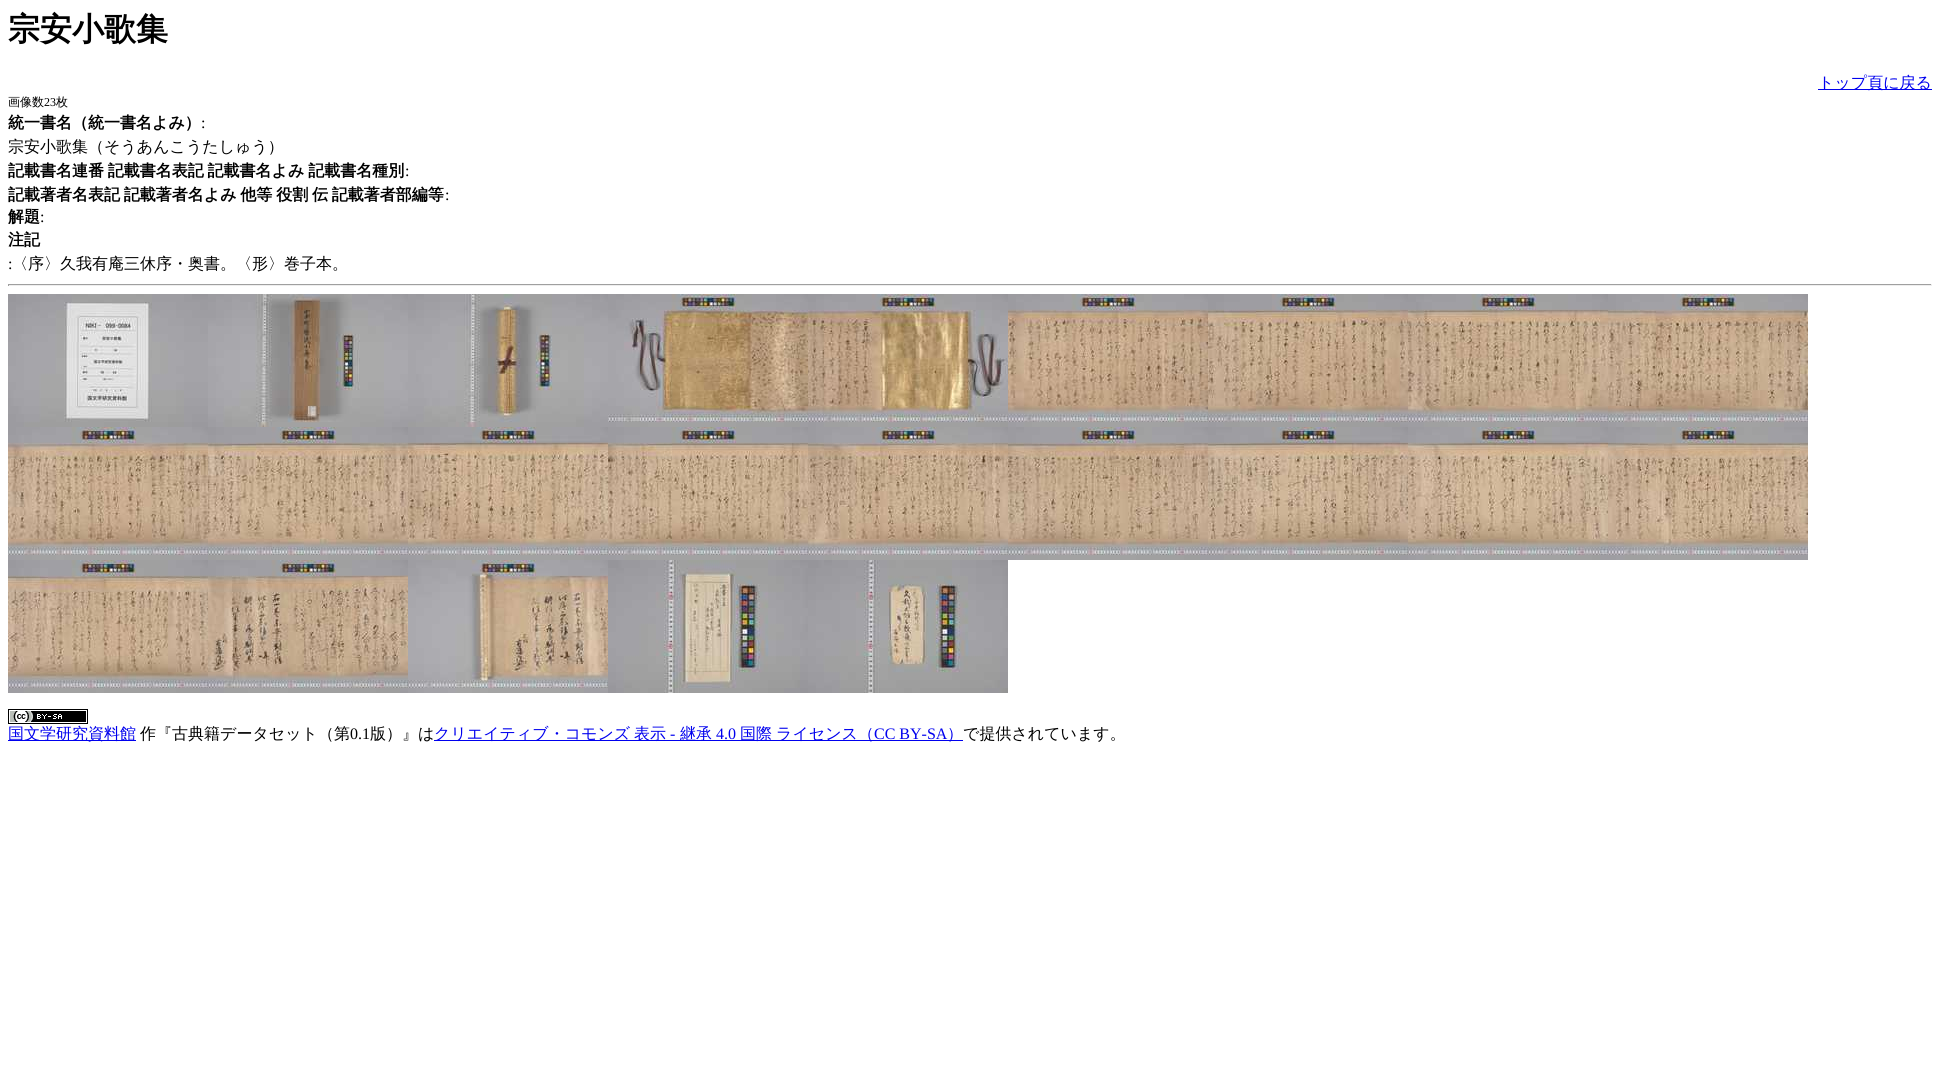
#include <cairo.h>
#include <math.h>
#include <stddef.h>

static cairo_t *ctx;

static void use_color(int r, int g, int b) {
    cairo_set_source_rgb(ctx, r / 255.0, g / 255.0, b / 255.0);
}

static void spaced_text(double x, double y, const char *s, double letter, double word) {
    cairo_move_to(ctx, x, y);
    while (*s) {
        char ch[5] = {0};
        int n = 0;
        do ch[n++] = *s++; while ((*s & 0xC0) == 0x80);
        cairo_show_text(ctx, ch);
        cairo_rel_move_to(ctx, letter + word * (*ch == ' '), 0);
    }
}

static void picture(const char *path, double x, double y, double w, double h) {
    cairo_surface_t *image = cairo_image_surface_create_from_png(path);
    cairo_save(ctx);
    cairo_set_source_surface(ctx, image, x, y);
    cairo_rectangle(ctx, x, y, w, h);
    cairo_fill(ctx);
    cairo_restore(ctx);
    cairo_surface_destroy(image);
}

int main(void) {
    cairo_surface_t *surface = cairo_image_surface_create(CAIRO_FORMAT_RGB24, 1940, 1082);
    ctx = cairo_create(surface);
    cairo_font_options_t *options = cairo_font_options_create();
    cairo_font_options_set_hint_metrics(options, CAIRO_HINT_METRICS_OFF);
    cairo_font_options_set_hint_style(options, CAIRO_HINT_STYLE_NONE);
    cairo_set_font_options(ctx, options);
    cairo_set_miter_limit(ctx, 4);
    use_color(255, 255, 255);
    cairo_paint(ctx);
    cairo_select_font_face(ctx, "WenQuanYi Zen Hei", CAIRO_FONT_SLANT_NORMAL, CAIRO_FONT_WEIGHT_BOLD);
    cairo_set_font_size(ctx, 32);
    use_color(0, 0, 0);
    cairo_move_to(ctx, 8, 40);
    cairo_show_text(ctx, "宗安小歌集");
    use_color(0, 0, 238);
    cairo_rectangle(ctx, 1818, 89, 114, 1);
    cairo_fill(ctx);
    cairo_select_font_face(ctx, "WenQuanYi Zen Hei Medium", CAIRO_FONT_SLANT_NORMAL, CAIRO_FONT_WEIGHT_NORMAL);
    cairo_set_font_size(ctx, 16);
    cairo_move_to(ctx, 1818, 88);
    cairo_show_text(ctx, "トップ頁に戻る");
    cairo_set_font_size(ctx, 12);
    use_color(0, 0, 0);
    cairo_move_to(ctx, 8, 106);
    cairo_show_text(ctx, "画像数");
    cairo_select_font_face(ctx, "Liberation Serif", CAIRO_FONT_SLANT_NORMAL, CAIRO_FONT_WEIGHT_NORMAL);
    cairo_move_to(ctx, 44, 106);
    cairo_show_text(ctx, "23");
    cairo_select_font_face(ctx, "WenQuanYi Zen Hei Medium", CAIRO_FONT_SLANT_NORMAL, CAIRO_FONT_WEIGHT_NORMAL);
    cairo_move_to(ctx, 56, 106);
    cairo_show_text(ctx, "枚");
    cairo_select_font_face(ctx, "WenQuanYi Zen Hei", CAIRO_FONT_SLANT_NORMAL, CAIRO_FONT_WEIGHT_BOLD);
    cairo_set_font_size(ctx, 16);
    cairo_move_to(ctx, 8, 128);
    cairo_show_text(ctx, "統一書名（統一書名よみ）");
    cairo_select_font_face(ctx, "Liberation Serif", CAIRO_FONT_SLANT_NORMAL, CAIRO_FONT_WEIGHT_NORMAL);
    cairo_move_to(ctx, 201, 128);
    cairo_show_text(ctx, ":");
    cairo_select_font_face(ctx, "WenQuanYi Zen Hei Medium", CAIRO_FONT_SLANT_NORMAL, CAIRO_FONT_WEIGHT_NORMAL);
    cairo_move_to(ctx, 8, 152);
    cairo_show_text(ctx, "宗安小歌集（そうあんこうたしゅう）");
    cairo_select_font_face(ctx, "WenQuanYi Zen Hei", CAIRO_FONT_SLANT_NORMAL, CAIRO_FONT_WEIGHT_BOLD);
    spaced_text(8, 176, "記載書名連番 記載書名表記 記載書名よみ 記載書名種別", 0, -1);
    cairo_select_font_face(ctx, "Liberation Serif", CAIRO_FONT_SLANT_NORMAL, CAIRO_FONT_WEIGHT_NORMAL);
    cairo_move_to(ctx, 405, 176);
    cairo_show_text(ctx, ":");
    cairo_select_font_face(ctx, "WenQuanYi Zen Hei", CAIRO_FONT_SLANT_NORMAL, CAIRO_FONT_WEIGHT_BOLD);
    spaced_text(8, 200, "記載著者名表記 記載著者名よみ 他等 役割 伝 記載著者部編等", 0, -1);
    cairo_select_font_face(ctx, "Liberation Serif", CAIRO_FONT_SLANT_NORMAL, CAIRO_FONT_WEIGHT_NORMAL);
    cairo_move_to(ctx, 445, 200);
    cairo_show_text(ctx, ":");
    cairo_select_font_face(ctx, "WenQuanYi Zen Hei", CAIRO_FONT_SLANT_NORMAL, CAIRO_FONT_WEIGHT_BOLD);
    cairo_move_to(ctx, 8, 222);
    cairo_show_text(ctx, "解題");
    cairo_select_font_face(ctx, "Liberation Serif", CAIRO_FONT_SLANT_NORMAL, CAIRO_FONT_WEIGHT_NORMAL);
    cairo_move_to(ctx, 40, 222);
    cairo_show_text(ctx, ":");
    cairo_select_font_face(ctx, "WenQuanYi Zen Hei", CAIRO_FONT_SLANT_NORMAL, CAIRO_FONT_WEIGHT_BOLD);
    cairo_move_to(ctx, 8, 245);
    cairo_show_text(ctx, "注記");
    cairo_select_font_face(ctx, "Liberation Serif", CAIRO_FONT_SLANT_NORMAL, CAIRO_FONT_WEIGHT_NORMAL);
    cairo_move_to(ctx, 8, 269);
    cairo_show_text(ctx, ":");
    cairo_select_font_face(ctx, "WenQuanYi Zen Hei Medium", CAIRO_FONT_SLANT_NORMAL, CAIRO_FONT_WEIGHT_NORMAL);
    cairo_move_to(ctx, 12, 269);
    cairo_show_text(ctx, "〈序〉久我有庵三休序・奥書。〈形〉巻子本。");
    use_color(159, 159, 159);
    cairo_rectangle(ctx, 8, 284, 1924, 1);
    cairo_fill(ctx);
    use_color(238, 238, 238);
    cairo_rectangle(ctx, 1931, 284, 1, 2);
    cairo_fill(ctx);
    cairo_rectangle(ctx, 8, 285, 1924, 1);
    cairo_fill(ctx);
    use_color(159, 159, 159);
    cairo_rectangle(ctx, 8, 284, 1, 2);
    cairo_fill(ctx);
    picture("img1.png", 8, 294, 200, 133);
    picture("img2.png", 208, 294, 200, 133);
    picture("img3.png", 408, 294, 200, 133);
    picture("img4.png", 608, 294, 200, 133);
    picture("img5.png", 808, 294, 200, 133);
    picture("img6.png", 1008, 294, 200, 133);
    picture("img7.png", 1208, 294, 200, 133);
    picture("img8.png", 1408, 294, 200, 133);
    picture("img9.png", 1608, 294, 200, 133);
    picture("img10.png", 8, 427, 200, 133);
    picture("img11.png", 208, 427, 200, 133);
    picture("img12.png", 408, 427, 200, 133);
    picture("img13.png", 608, 427, 200, 133);
    picture("img14.png", 808, 427, 200, 133);
    picture("img15.png", 1008, 427, 200, 133);
    picture("img16.png", 1208, 427, 200, 133);
    picture("img17.png", 1408, 427, 200, 133);
    picture("img18.png", 1608, 427, 200, 133);
    picture("img19.png", 8, 560, 200, 133);
    picture("img20.png", 208, 560, 200, 133);
    picture("img21.png", 408, 560, 200, 133);
    picture("img22.png", 608, 560, 200, 133);
    picture("img23.png", 808, 560, 200, 133);
    picture("img24.png", 8, 709, 80, 15);
    use_color(0, 0, 238);
    cairo_rectangle(ctx, 8, 740, 128, 1);
    cairo_fill(ctx);
    cairo_move_to(ctx, 8, 739);
    cairo_show_text(ctx, "国文学研究資料館");
    use_color(0, 0, 0);
    cairo_move_to(ctx, 140, 739);
    cairo_show_text(ctx, "作『古典籍データセット（第");
    cairo_select_font_face(ctx, "Liberation Serif", CAIRO_FONT_SLANT_NORMAL, CAIRO_FONT_WEIGHT_NORMAL);
    cairo_move_to(ctx, 350, 739);
    cairo_show_text(ctx, "0.1");
    cairo_select_font_face(ctx, "WenQuanYi Zen Hei Medium", CAIRO_FONT_SLANT_NORMAL, CAIRO_FONT_WEIGHT_NORMAL);
    cairo_move_to(ctx, 370, 739);
    cairo_show_text(ctx, "版）』は");
    use_color(0, 0, 238);
    cairo_rectangle(ctx, 434, 740, 529, 1);
    cairo_fill(ctx);
    cairo_move_to(ctx, 434, 739);
    cairo_show_text(ctx, "クリエイティブ・コモンズ");
    cairo_move_to(ctx, 634, 739);
    cairo_show_text(ctx, "表示");
    cairo_select_font_face(ctx, "Liberation Serif", CAIRO_FONT_SLANT_NORMAL, CAIRO_FONT_WEIGHT_NORMAL);
    cairo_move_to(ctx, 670, 739);
    cairo_show_text(ctx, "-");
    cairo_select_font_face(ctx, "WenQuanYi Zen Hei Medium", CAIRO_FONT_SLANT_NORMAL, CAIRO_FONT_WEIGHT_NORMAL);
    cairo_move_to(ctx, 680, 739);
    cairo_show_text(ctx, "継承");
    cairo_select_font_face(ctx, "Liberation Serif", CAIRO_FONT_SLANT_NORMAL, CAIRO_FONT_WEIGHT_NORMAL);
    cairo_move_to(ctx, 716, 739);
    cairo_show_text(ctx, "4.0");
    cairo_select_font_face(ctx, "WenQuanYi Zen Hei Medium", CAIRO_FONT_SLANT_NORMAL, CAIRO_FONT_WEIGHT_NORMAL);
    cairo_move_to(ctx, 740, 739);
    cairo_show_text(ctx, "国際");
    cairo_move_to(ctx, 776, 739);
    cairo_show_text(ctx, "ライセンス（");
    cairo_select_font_face(ctx, "Liberation Serif", CAIRO_FONT_SLANT_NORMAL, CAIRO_FONT_WEIGHT_NORMAL);
    cairo_move_to(ctx, 874, 739);
    cairo_show_text(ctx, "CC BY-SA");
    cairo_select_font_face(ctx, "WenQuanYi Zen Hei Medium", CAIRO_FONT_SLANT_NORMAL, CAIRO_FONT_WEIGHT_NORMAL);
    cairo_move_to(ctx, 947, 739);
    cairo_show_text(ctx, "）");
    use_color(0, 0, 0);
    cairo_move_to(ctx, 963, 739);
    cairo_show_text(ctx, "で提供されています。");
    cairo_surface_write_to_png(surface, "result.png");
    cairo_font_options_destroy(options);
    cairo_destroy(ctx);
    cairo_surface_destroy(surface);
    return 0;
}
